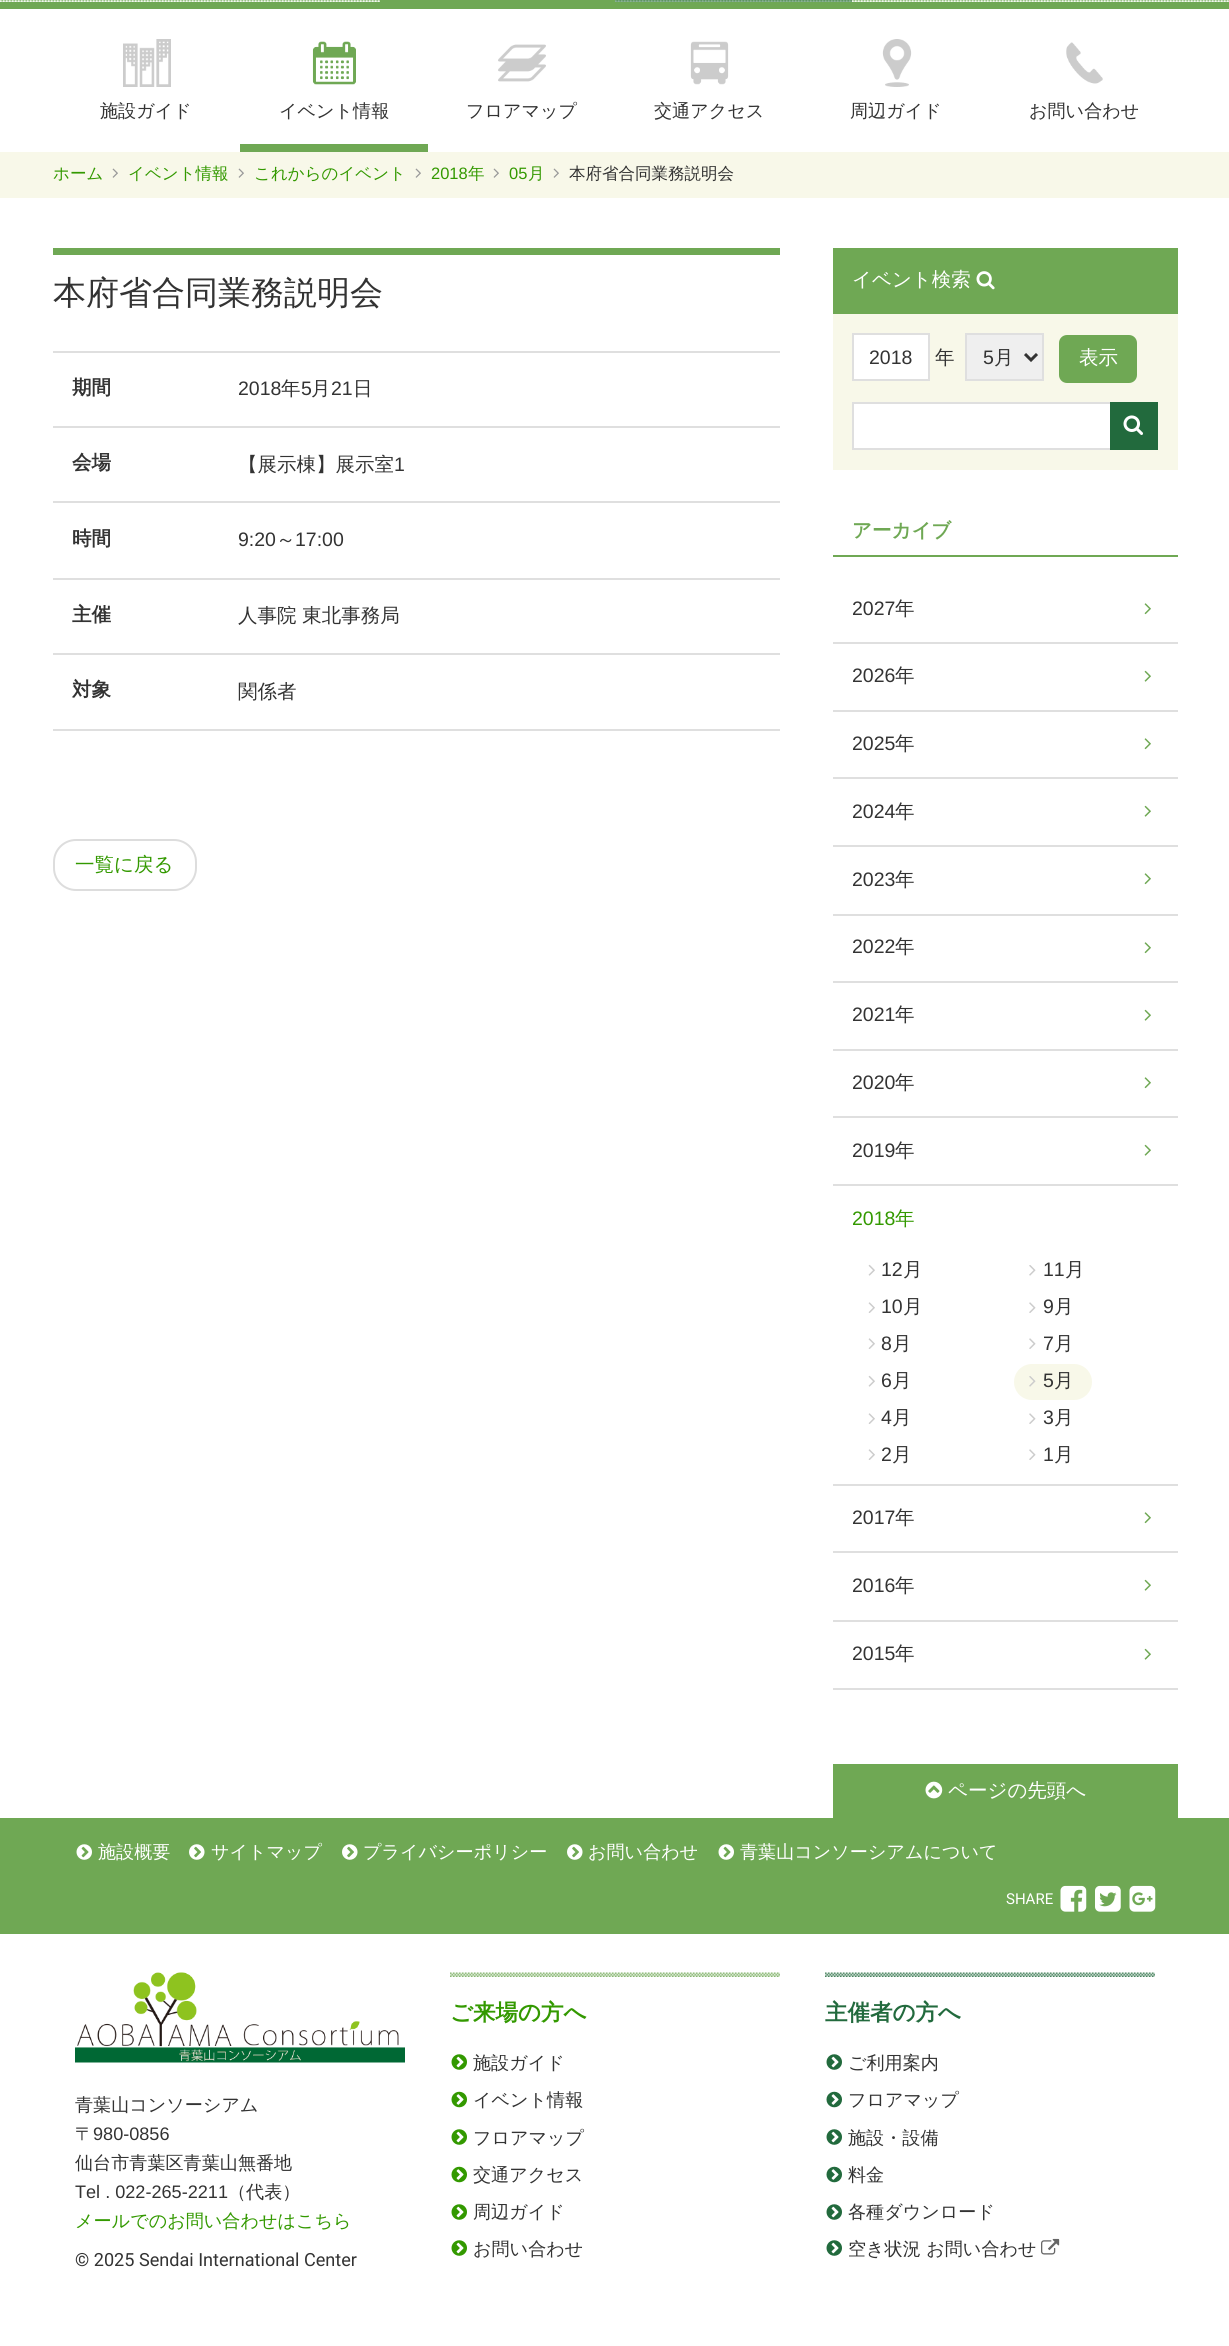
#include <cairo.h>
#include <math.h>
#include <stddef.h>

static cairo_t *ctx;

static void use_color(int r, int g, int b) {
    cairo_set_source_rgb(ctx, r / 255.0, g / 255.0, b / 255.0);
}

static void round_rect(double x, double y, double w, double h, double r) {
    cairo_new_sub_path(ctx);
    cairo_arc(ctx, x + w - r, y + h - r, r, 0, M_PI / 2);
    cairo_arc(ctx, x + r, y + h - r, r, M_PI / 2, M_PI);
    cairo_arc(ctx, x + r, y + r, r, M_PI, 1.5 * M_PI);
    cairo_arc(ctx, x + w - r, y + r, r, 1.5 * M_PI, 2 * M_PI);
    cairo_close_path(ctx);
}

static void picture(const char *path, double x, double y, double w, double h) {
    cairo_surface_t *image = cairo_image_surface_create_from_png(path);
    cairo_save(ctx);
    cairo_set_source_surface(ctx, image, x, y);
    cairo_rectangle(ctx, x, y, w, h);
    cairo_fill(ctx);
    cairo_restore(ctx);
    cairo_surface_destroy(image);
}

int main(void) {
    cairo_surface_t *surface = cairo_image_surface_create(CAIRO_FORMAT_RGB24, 1229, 2346);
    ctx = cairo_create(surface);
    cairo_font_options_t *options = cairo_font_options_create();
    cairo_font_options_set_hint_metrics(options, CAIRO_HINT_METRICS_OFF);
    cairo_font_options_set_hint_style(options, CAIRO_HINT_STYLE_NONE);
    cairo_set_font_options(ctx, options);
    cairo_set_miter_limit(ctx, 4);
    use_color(255, 255, 255);
    cairo_paint(ctx);
    picture("img1.png", 0, 0, 1229, 2);
    use_color(111, 168, 84);
    cairo_rectangle(ctx, 380, 0, 235, 2);
    cairo_fill(ctx);
    cairo_set_source_rgba(ctx, 0.133, 0.416, 0.239, 0.5);
    cairo_rectangle(ctx, 615, 0, 237, 2);
    cairo_fill(ctx);
    use_color(111, 168, 84);
    cairo_rectangle(ctx, 0, 2, 1229, 7);
    cairo_fill(ctx);
    picture("img2.png", 123, 39, 48, 48);
    cairo_select_font_face(ctx, "WenQuanYi Zen Hei Medium", CAIRO_FONT_SLANT_NORMAL, CAIRO_FONT_WEIGHT_NORMAL);
    cairo_set_font_size(ctx, 18.1);
    use_color(51, 51, 51);
    cairo_move_to(ctx, 100, 117);
    cairo_show_text(ctx, "施設ガイド");
    use_color(111, 168, 84);
    cairo_rectangle(ctx, 240, 144, 188, 8);
    cairo_fill(ctx);
    picture("img3.png", 312, 41, 44, 44);
    use_color(51, 51, 51);
    cairo_move_to(ctx, 279, 117);
    cairo_show_text(ctx, "イベント情報");
    picture("img4.png", 498, 44, 48, 38);
    cairo_move_to(ctx, 466, 117);
    cairo_show_text(ctx, "フロアマップ");
    picture("img5.png", 690, 41, 39, 44);
    cairo_move_to(ctx, 654, 117);
    cairo_show_text(ctx, "交通アクセス");
    picture("img6.png", 882, 39, 30, 48);
    cairo_move_to(ctx, 850, 117);
    cairo_show_text(ctx, "周辺ガイド");
    picture("img7.png", 1066, 42, 37, 42);
    cairo_move_to(ctx, 1029, 117);
    cairo_show_text(ctx, "お問い合わせ");
    use_color(248, 248, 233);
    cairo_rectangle(ctx, 0, 152, 1229, 46);
    cairo_fill(ctx);
    cairo_set_font_size(ctx, 16.5);
    use_color(51, 153, 0);
    cairo_move_to(ctx, 53, 179);
    cairo_show_text(ctx, "ホーム");
    picture("img8.png", 112, 168, 6, 10);
    cairo_move_to(ctx, 128, 179);
    cairo_show_text(ctx, "イベント情報");
    picture("img8.png", 238, 168, 6, 10);
    cairo_move_to(ctx, 254, 179);
    cairo_show_text(ctx, "これからのイベント");
    picture("img8.png", 415, 168, 6, 10);
    cairo_select_font_face(ctx, "Liberation Sans", CAIRO_FONT_SLANT_NORMAL, CAIRO_FONT_WEIGHT_NORMAL);
    cairo_move_to(ctx, 431, 179);
    cairo_show_text(ctx, "2018");
    cairo_select_font_face(ctx, "WenQuanYi Zen Hei Medium", CAIRO_FONT_SLANT_NORMAL, CAIRO_FONT_WEIGHT_NORMAL);
    cairo_move_to(ctx, 468, 179);
    cairo_show_text(ctx, "年");
    picture("img8.png", 493, 168, 6, 10);
    cairo_select_font_face(ctx, "Liberation Sans", CAIRO_FONT_SLANT_NORMAL, CAIRO_FONT_WEIGHT_NORMAL);
    cairo_move_to(ctx, 509, 179);
    cairo_show_text(ctx, "05");
    cairo_select_font_face(ctx, "WenQuanYi Zen Hei Medium", CAIRO_FONT_SLANT_NORMAL, CAIRO_FONT_WEIGHT_NORMAL);
    cairo_move_to(ctx, 528, 179);
    cairo_show_text(ctx, "月");
    picture("img8.png", 553, 168, 6, 10);
    use_color(51, 51, 51);
    cairo_move_to(ctx, 569, 179);
    cairo_show_text(ctx, "本府省合同業務説明会");
    use_color(111, 168, 84);
    cairo_rectangle(ctx, 53, 248, 727, 7);
    cairo_fill(ctx);
    cairo_set_font_size(ctx, 33);
    use_color(51, 51, 51);
    cairo_move_to(ctx, 53, 304);
    cairo_show_text(ctx, "本府省合同業務説明会");
    cairo_select_font_face(ctx, "WenQuanYi Zen Hei", CAIRO_FONT_SLANT_NORMAL, CAIRO_FONT_WEIGHT_BOLD);
    cairo_set_font_size(ctx, 19.5);
    cairo_move_to(ctx, 72, 394);
    cairo_show_text(ctx, "期間");
    use_color(223, 223, 223);
    cairo_rectangle(ctx, 53, 351, 727, 2);
    cairo_fill(ctx);
    cairo_select_font_face(ctx, "Liberation Sans", CAIRO_FONT_SLANT_NORMAL, CAIRO_FONT_WEIGHT_NORMAL);
    use_color(51, 51, 51);
    cairo_move_to(ctx, 238, 395);
    cairo_show_text(ctx, "2018");
    cairo_select_font_face(ctx, "WenQuanYi Zen Hei Medium", CAIRO_FONT_SLANT_NORMAL, CAIRO_FONT_WEIGHT_NORMAL);
    cairo_move_to(ctx, 281, 395);
    cairo_show_text(ctx, "年");
    cairo_select_font_face(ctx, "Liberation Sans", CAIRO_FONT_SLANT_NORMAL, CAIRO_FONT_WEIGHT_NORMAL);
    cairo_move_to(ctx, 301, 395);
    cairo_show_text(ctx, "5");
    cairo_select_font_face(ctx, "WenQuanYi Zen Hei Medium", CAIRO_FONT_SLANT_NORMAL, CAIRO_FONT_WEIGHT_NORMAL);
    cairo_move_to(ctx, 311, 395);
    cairo_show_text(ctx, "月");
    cairo_select_font_face(ctx, "Liberation Sans", CAIRO_FONT_SLANT_NORMAL, CAIRO_FONT_WEIGHT_NORMAL);
    cairo_move_to(ctx, 331, 395);
    cairo_show_text(ctx, "21");
    cairo_select_font_face(ctx, "WenQuanYi Zen Hei Medium", CAIRO_FONT_SLANT_NORMAL, CAIRO_FONT_WEIGHT_NORMAL);
    cairo_move_to(ctx, 353, 395);
    cairo_show_text(ctx, "日");
    cairo_select_font_face(ctx, "WenQuanYi Zen Hei", CAIRO_FONT_SLANT_NORMAL, CAIRO_FONT_WEIGHT_BOLD);
    cairo_move_to(ctx, 72, 469);
    cairo_show_text(ctx, "会場");
    use_color(223, 223, 223);
    cairo_rectangle(ctx, 53, 426, 727, 2);
    cairo_fill(ctx);
    cairo_select_font_face(ctx, "WenQuanYi Zen Hei Medium", CAIRO_FONT_SLANT_NORMAL, CAIRO_FONT_WEIGHT_NORMAL);
    use_color(51, 51, 51);
    cairo_move_to(ctx, 238, 471);
    cairo_show_text(ctx, "【展示棟】展示室");
    cairo_select_font_face(ctx, "Liberation Sans", CAIRO_FONT_SLANT_NORMAL, CAIRO_FONT_WEIGHT_NORMAL);
    cairo_move_to(ctx, 394, 471);
    cairo_show_text(ctx, "1");
    cairo_select_font_face(ctx, "WenQuanYi Zen Hei", CAIRO_FONT_SLANT_NORMAL, CAIRO_FONT_WEIGHT_BOLD);
    cairo_move_to(ctx, 72, 545);
    cairo_show_text(ctx, "時間");
    use_color(223, 223, 223);
    cairo_rectangle(ctx, 53, 501, 727, 2);
    cairo_fill(ctx);
    cairo_select_font_face(ctx, "Liberation Sans", CAIRO_FONT_SLANT_NORMAL, CAIRO_FONT_WEIGHT_NORMAL);
    use_color(51, 51, 51);
    cairo_move_to(ctx, 238, 546);
    cairo_show_text(ctx, "9:20");
    cairo_select_font_face(ctx, "WenQuanYi Zen Hei Medium", CAIRO_FONT_SLANT_NORMAL, CAIRO_FONT_WEIGHT_NORMAL);
    cairo_move_to(ctx, 276, 546);
    cairo_show_text(ctx, "～");
    cairo_select_font_face(ctx, "Liberation Sans", CAIRO_FONT_SLANT_NORMAL, CAIRO_FONT_WEIGHT_NORMAL);
    cairo_move_to(ctx, 295, 546);
    cairo_show_text(ctx, "17:00");
    cairo_select_font_face(ctx, "WenQuanYi Zen Hei", CAIRO_FONT_SLANT_NORMAL, CAIRO_FONT_WEIGHT_BOLD);
    cairo_move_to(ctx, 72, 621);
    cairo_show_text(ctx, "主催");
    use_color(223, 223, 223);
    cairo_rectangle(ctx, 53, 578, 727, 2);
    cairo_fill(ctx);
    cairo_select_font_face(ctx, "WenQuanYi Zen Hei Medium", CAIRO_FONT_SLANT_NORMAL, CAIRO_FONT_WEIGHT_NORMAL);
    use_color(51, 51, 51);
    cairo_move_to(ctx, 238, 622);
    cairo_show_text(ctx, "人事院 東北事務局");
    cairo_select_font_face(ctx, "WenQuanYi Zen Hei", CAIRO_FONT_SLANT_NORMAL, CAIRO_FONT_WEIGHT_BOLD);
    cairo_move_to(ctx, 72, 696);
    cairo_show_text(ctx, "対象");
    use_color(223, 223, 223);
    cairo_rectangle(ctx, 53, 653, 727, 2);
    cairo_fill(ctx);
    cairo_rectangle(ctx, 53, 729, 727, 2);
    cairo_fill(ctx);
    cairo_select_font_face(ctx, "WenQuanYi Zen Hei Medium", CAIRO_FONT_SLANT_NORMAL, CAIRO_FONT_WEIGHT_NORMAL);
    use_color(51, 51, 51);
    cairo_move_to(ctx, 238, 698);
    cairo_show_text(ctx, "関係者");
    round_rect(54, 840, 142, 50, 22);
    use_color(221, 221, 221);
    cairo_stroke(ctx);
    use_color(51, 153, 0);
    cairo_move_to(ctx, 75, 871);
    cairo_show_text(ctx, "一覧に戻る");
    use_color(111, 168, 84);
    cairo_rectangle(ctx, 833, 248, 345, 66);
    cairo_fill(ctx);
    use_color(255, 255, 255);
    cairo_move_to(ctx, 852, 286);
    cairo_show_text(ctx, "イベント検索");
    picture("img9.png", 976, 271, 19, 19);
    use_color(248, 248, 233);
    cairo_rectangle(ctx, 833, 314, 345, 156);
    cairo_fill(ctx);
    use_color(255, 255, 255);
    cairo_rectangle(ctx, 853, 334, 76, 46);
    cairo_fill_preserve(ctx);
    use_color(223, 223, 223);
    cairo_stroke(ctx);
    cairo_select_font_face(ctx, "Liberation Sans", CAIRO_FONT_SLANT_NORMAL, CAIRO_FONT_WEIGHT_NORMAL);
    use_color(51, 51, 51);
    cairo_move_to(ctx, 869, 364);
    cairo_show_text(ctx, "2018");
    cairo_select_font_face(ctx, "WenQuanYi Zen Hei Medium", CAIRO_FONT_SLANT_NORMAL, CAIRO_FONT_WEIGHT_NORMAL);
    cairo_move_to(ctx, 935, 364);
    cairo_show_text(ctx, "年");
    use_color(239, 239, 239);
    cairo_rectangle(ctx, 966, 334, 77, 46);
    cairo_fill_preserve(ctx);
    use_color(223, 223, 223);
    cairo_stroke(ctx);
    cairo_new_path(ctx);
    cairo_move_to(ctx, 1025, 354);
    cairo_line_to(ctx, 1031, 360);
    cairo_line_to(ctx, 1037, 354);
    use_color(51, 51, 51);
    cairo_set_line_width(ctx, 3);
    cairo_stroke(ctx);
    cairo_select_font_face(ctx, "Liberation Sans", CAIRO_FONT_SLANT_NORMAL, CAIRO_FONT_WEIGHT_NORMAL);
    cairo_move_to(ctx, 983, 364);
    cairo_show_text(ctx, "5");
    cairo_select_font_face(ctx, "WenQuanYi Zen Hei Medium", CAIRO_FONT_SLANT_NORMAL, CAIRO_FONT_WEIGHT_NORMAL);
    cairo_move_to(ctx, 994, 364);
    cairo_show_text(ctx, "月");
    use_color(111, 168, 84);
    round_rect(1059, 335, 78, 48, 8);
    cairo_fill(ctx);
    use_color(255, 255, 255);
    cairo_move_to(ctx, 1079, 364);
    cairo_show_text(ctx, "表示");
    cairo_rectangle(ctx, 854, 404, 256, 44);
    cairo_fill(ctx);
    cairo_rectangle(ctx, 853, 403, 304, 46);
    use_color(223, 223, 223);
    cairo_set_line_width(ctx, 2);
    cairo_stroke(ctx);
    use_color(34, 106, 61);
    cairo_rectangle(ctx, 1110, 402, 48, 48);
    cairo_fill(ctx);
    picture("img10.png", 1123, 415, 20, 20);
    use_color(111, 168, 84);
    cairo_rectangle(ctx, 833, 555, 345, 2);
    cairo_fill(ctx);
    cairo_select_font_face(ctx, "WenQuanYi Zen Hei", CAIRO_FONT_SLANT_NORMAL, CAIRO_FONT_WEIGHT_BOLD);
    cairo_move_to(ctx, 852, 537);
    cairo_show_text(ctx, "アーカイブ");
    use_color(223, 223, 223);
    cairo_rectangle(ctx, 833, 1688, 345, 2);
    cairo_fill(ctx);
    cairo_select_font_face(ctx, "Liberation Sans", CAIRO_FONT_SLANT_NORMAL, CAIRO_FONT_WEIGHT_NORMAL);
    use_color(51, 51, 51);
    cairo_move_to(ctx, 852, 615);
    cairo_show_text(ctx, "2027");
    cairo_select_font_face(ctx, "WenQuanYi Zen Hei Medium", CAIRO_FONT_SLANT_NORMAL, CAIRO_FONT_WEIGHT_NORMAL);
    cairo_move_to(ctx, 895, 615);
    cairo_show_text(ctx, "年");
    picture("img11.png", 1144, 603, 7, 12);
    use_color(223, 223, 223);
    cairo_rectangle(ctx, 833, 642, 345, 2);
    cairo_fill(ctx);
    cairo_select_font_face(ctx, "Liberation Sans", CAIRO_FONT_SLANT_NORMAL, CAIRO_FONT_WEIGHT_NORMAL);
    use_color(51, 51, 51);
    cairo_move_to(ctx, 852, 682);
    cairo_show_text(ctx, "2026");
    cairo_select_font_face(ctx, "WenQuanYi Zen Hei Medium", CAIRO_FONT_SLANT_NORMAL, CAIRO_FONT_WEIGHT_NORMAL);
    cairo_move_to(ctx, 895, 682);
    cairo_show_text(ctx, "年");
    picture("img12.png", 1144, 670, 7, 12);
    use_color(223, 223, 223);
    cairo_rectangle(ctx, 833, 710, 345, 2);
    cairo_fill(ctx);
    cairo_select_font_face(ctx, "Liberation Sans", CAIRO_FONT_SLANT_NORMAL, CAIRO_FONT_WEIGHT_NORMAL);
    use_color(51, 51, 51);
    cairo_move_to(ctx, 852, 750);
    cairo_show_text(ctx, "2025");
    cairo_select_font_face(ctx, "WenQuanYi Zen Hei Medium", CAIRO_FONT_SLANT_NORMAL, CAIRO_FONT_WEIGHT_NORMAL);
    cairo_move_to(ctx, 895, 750);
    cairo_show_text(ctx, "年");
    picture("img11.png", 1144, 738, 7, 12);
    use_color(223, 223, 223);
    cairo_rectangle(ctx, 833, 777, 345, 2);
    cairo_fill(ctx);
    cairo_select_font_face(ctx, "Liberation Sans", CAIRO_FONT_SLANT_NORMAL, CAIRO_FONT_WEIGHT_NORMAL);
    use_color(51, 51, 51);
    cairo_move_to(ctx, 852, 818);
    cairo_show_text(ctx, "2024");
    cairo_select_font_face(ctx, "WenQuanYi Zen Hei Medium", CAIRO_FONT_SLANT_NORMAL, CAIRO_FONT_WEIGHT_NORMAL);
    cairo_move_to(ctx, 895, 818);
    cairo_show_text(ctx, "年");
    picture("img12.png", 1144, 805, 7, 12);
    use_color(223, 223, 223);
    cairo_rectangle(ctx, 833, 845, 345, 2);
    cairo_fill(ctx);
    cairo_select_font_face(ctx, "Liberation Sans", CAIRO_FONT_SLANT_NORMAL, CAIRO_FONT_WEIGHT_NORMAL);
    use_color(51, 51, 51);
    cairo_move_to(ctx, 852, 886);
    cairo_show_text(ctx, "2023");
    cairo_select_font_face(ctx, "WenQuanYi Zen Hei Medium", CAIRO_FONT_SLANT_NORMAL, CAIRO_FONT_WEIGHT_NORMAL);
    cairo_move_to(ctx, 895, 886);
    cairo_show_text(ctx, "年");
    picture("img11.png", 1144, 873, 7, 12);
    use_color(223, 223, 223);
    cairo_rectangle(ctx, 833, 914, 345, 2);
    cairo_fill(ctx);
    cairo_select_font_face(ctx, "Liberation Sans", CAIRO_FONT_SLANT_NORMAL, CAIRO_FONT_WEIGHT_NORMAL);
    use_color(51, 51, 51);
    cairo_move_to(ctx, 852, 953);
    cairo_show_text(ctx, "2022");
    cairo_select_font_face(ctx, "WenQuanYi Zen Hei Medium", CAIRO_FONT_SLANT_NORMAL, CAIRO_FONT_WEIGHT_NORMAL);
    cairo_move_to(ctx, 895, 953);
    cairo_show_text(ctx, "年");
    picture("img11.png", 1144, 942, 7, 12);
    use_color(223, 223, 223);
    cairo_rectangle(ctx, 833, 981, 345, 2);
    cairo_fill(ctx);
    cairo_select_font_face(ctx, "Liberation Sans", CAIRO_FONT_SLANT_NORMAL, CAIRO_FONT_WEIGHT_NORMAL);
    use_color(51, 51, 51);
    cairo_move_to(ctx, 852, 1021);
    cairo_show_text(ctx, "2021");
    cairo_select_font_face(ctx, "WenQuanYi Zen Hei Medium", CAIRO_FONT_SLANT_NORMAL, CAIRO_FONT_WEIGHT_NORMAL);
    cairo_move_to(ctx, 895, 1021);
    cairo_show_text(ctx, "年");
    picture("img12.png", 1144, 1009, 7, 12);
    use_color(223, 223, 223);
    cairo_rectangle(ctx, 833, 1049, 345, 2);
    cairo_fill(ctx);
    cairo_select_font_face(ctx, "Liberation Sans", CAIRO_FONT_SLANT_NORMAL, CAIRO_FONT_WEIGHT_NORMAL);
    use_color(51, 51, 51);
    cairo_move_to(ctx, 852, 1089);
    cairo_show_text(ctx, "2020");
    cairo_select_font_face(ctx, "WenQuanYi Zen Hei Medium", CAIRO_FONT_SLANT_NORMAL, CAIRO_FONT_WEIGHT_NORMAL);
    cairo_move_to(ctx, 895, 1089);
    cairo_show_text(ctx, "年");
    picture("img11.png", 1144, 1077, 7, 12);
    use_color(223, 223, 223);
    cairo_rectangle(ctx, 833, 1116, 345, 2);
    cairo_fill(ctx);
    cairo_select_font_face(ctx, "Liberation Sans", CAIRO_FONT_SLANT_NORMAL, CAIRO_FONT_WEIGHT_NORMAL);
    use_color(51, 51, 51);
    cairo_move_to(ctx, 852, 1157);
    cairo_show_text(ctx, "2019");
    cairo_select_font_face(ctx, "WenQuanYi Zen Hei Medium", CAIRO_FONT_SLANT_NORMAL, CAIRO_FONT_WEIGHT_NORMAL);
    cairo_move_to(ctx, 895, 1157);
    cairo_show_text(ctx, "年");
    picture("img12.png", 1144, 1144, 7, 12);
    use_color(223, 223, 223);
    cairo_rectangle(ctx, 833, 1184, 345, 2);
    cairo_fill(ctx);
    cairo_select_font_face(ctx, "Liberation Sans", CAIRO_FONT_SLANT_NORMAL, CAIRO_FONT_WEIGHT_NORMAL);
    use_color(51, 153, 0);
    cairo_move_to(ctx, 852, 1225);
    cairo_show_text(ctx, "2018");
    cairo_select_font_face(ctx, "WenQuanYi Zen Hei Medium", CAIRO_FONT_SLANT_NORMAL, CAIRO_FONT_WEIGHT_NORMAL);
    cairo_move_to(ctx, 895, 1225);
    cairo_show_text(ctx, "年");
    picture("img13.png", 868, 1264, 7, 12);
    cairo_select_font_face(ctx, "Liberation Sans", CAIRO_FONT_SLANT_NORMAL, CAIRO_FONT_WEIGHT_NORMAL);
    use_color(51, 51, 51);
    cairo_move_to(ctx, 881, 1276);
    cairo_show_text(ctx, "12");
    cairo_select_font_face(ctx, "WenQuanYi Zen Hei Medium", CAIRO_FONT_SLANT_NORMAL, CAIRO_FONT_WEIGHT_NORMAL);
    cairo_move_to(ctx, 903, 1276);
    cairo_show_text(ctx, "月");
    picture("img14.png", 1029, 1265, 7, 11);
    cairo_select_font_face(ctx, "Liberation Sans", CAIRO_FONT_SLANT_NORMAL, CAIRO_FONT_WEIGHT_NORMAL);
    cairo_move_to(ctx, 1043, 1276);
    cairo_show_text(ctx, "11");
    cairo_select_font_face(ctx, "WenQuanYi Zen Hei Medium", CAIRO_FONT_SLANT_NORMAL, CAIRO_FONT_WEIGHT_NORMAL);
    cairo_move_to(ctx, 1065, 1276);
    cairo_show_text(ctx, "月");
    picture("img15.png", 868, 1302, 7, 11);
    cairo_select_font_face(ctx, "Liberation Sans", CAIRO_FONT_SLANT_NORMAL, CAIRO_FONT_WEIGHT_NORMAL);
    cairo_move_to(ctx, 881, 1313);
    cairo_show_text(ctx, "10");
    cairo_select_font_face(ctx, "WenQuanYi Zen Hei Medium", CAIRO_FONT_SLANT_NORMAL, CAIRO_FONT_WEIGHT_NORMAL);
    cairo_move_to(ctx, 903, 1313);
    cairo_show_text(ctx, "月");
    picture("img16.png", 1029, 1302, 7, 11);
    cairo_select_font_face(ctx, "Liberation Sans", CAIRO_FONT_SLANT_NORMAL, CAIRO_FONT_WEIGHT_NORMAL);
    cairo_move_to(ctx, 1043, 1313);
    cairo_show_text(ctx, "9");
    cairo_select_font_face(ctx, "WenQuanYi Zen Hei Medium", CAIRO_FONT_SLANT_NORMAL, CAIRO_FONT_WEIGHT_NORMAL);
    cairo_move_to(ctx, 1054, 1313);
    cairo_show_text(ctx, "月");
    picture("img15.png", 868, 1338, 7, 11);
    cairo_select_font_face(ctx, "Liberation Sans", CAIRO_FONT_SLANT_NORMAL, CAIRO_FONT_WEIGHT_NORMAL);
    cairo_move_to(ctx, 881, 1350);
    cairo_show_text(ctx, "8");
    cairo_select_font_face(ctx, "WenQuanYi Zen Hei Medium", CAIRO_FONT_SLANT_NORMAL, CAIRO_FONT_WEIGHT_NORMAL);
    cairo_move_to(ctx, 892, 1350);
    cairo_show_text(ctx, "月");
    picture("img16.png", 1029, 1338, 7, 11);
    cairo_select_font_face(ctx, "Liberation Sans", CAIRO_FONT_SLANT_NORMAL, CAIRO_FONT_WEIGHT_NORMAL);
    cairo_move_to(ctx, 1043, 1350);
    cairo_show_text(ctx, "7");
    cairo_select_font_face(ctx, "WenQuanYi Zen Hei Medium", CAIRO_FONT_SLANT_NORMAL, CAIRO_FONT_WEIGHT_NORMAL);
    cairo_move_to(ctx, 1054, 1350);
    cairo_show_text(ctx, "月");
    picture("img13.png", 868, 1375, 7, 12);
    cairo_select_font_face(ctx, "Liberation Sans", CAIRO_FONT_SLANT_NORMAL, CAIRO_FONT_WEIGHT_NORMAL);
    cairo_move_to(ctx, 881, 1387);
    cairo_show_text(ctx, "6");
    cairo_select_font_face(ctx, "WenQuanYi Zen Hei Medium", CAIRO_FONT_SLANT_NORMAL, CAIRO_FONT_WEIGHT_NORMAL);
    cairo_move_to(ctx, 892, 1387);
    cairo_show_text(ctx, "月");
    use_color(248, 248, 233);
    round_rect(1014, 1364, 78, 36, 18);
    cairo_fill(ctx);
    picture("img17.png", 1029, 1376, 7, 11);
    cairo_select_font_face(ctx, "Liberation Sans", CAIRO_FONT_SLANT_NORMAL, CAIRO_FONT_WEIGHT_NORMAL);
    use_color(51, 51, 51);
    cairo_move_to(ctx, 1043, 1387);
    cairo_show_text(ctx, "5");
    cairo_select_font_face(ctx, "WenQuanYi Zen Hei Medium", CAIRO_FONT_SLANT_NORMAL, CAIRO_FONT_WEIGHT_NORMAL);
    cairo_move_to(ctx, 1054, 1387);
    cairo_show_text(ctx, "月");
    picture("img15.png", 868, 1413, 7, 11);
    cairo_select_font_face(ctx, "Liberation Sans", CAIRO_FONT_SLANT_NORMAL, CAIRO_FONT_WEIGHT_NORMAL);
    cairo_move_to(ctx, 881, 1424);
    cairo_show_text(ctx, "4");
    cairo_select_font_face(ctx, "WenQuanYi Zen Hei Medium", CAIRO_FONT_SLANT_NORMAL, CAIRO_FONT_WEIGHT_NORMAL);
    cairo_move_to(ctx, 892, 1424);
    cairo_show_text(ctx, "月");
    picture("img16.png", 1029, 1413, 7, 11);
    cairo_select_font_face(ctx, "Liberation Sans", CAIRO_FONT_SLANT_NORMAL, CAIRO_FONT_WEIGHT_NORMAL);
    cairo_move_to(ctx, 1043, 1424);
    cairo_show_text(ctx, "3");
    cairo_select_font_face(ctx, "WenQuanYi Zen Hei Medium", CAIRO_FONT_SLANT_NORMAL, CAIRO_FONT_WEIGHT_NORMAL);
    cairo_move_to(ctx, 1054, 1424);
    cairo_show_text(ctx, "月");
    picture("img15.png", 868, 1449, 7, 11);
    cairo_select_font_face(ctx, "Liberation Sans", CAIRO_FONT_SLANT_NORMAL, CAIRO_FONT_WEIGHT_NORMAL);
    cairo_move_to(ctx, 881, 1461);
    cairo_show_text(ctx, "2");
    cairo_select_font_face(ctx, "WenQuanYi Zen Hei Medium", CAIRO_FONT_SLANT_NORMAL, CAIRO_FONT_WEIGHT_NORMAL);
    cairo_move_to(ctx, 892, 1461);
    cairo_show_text(ctx, "月");
    picture("img16.png", 1029, 1449, 7, 11);
    cairo_select_font_face(ctx, "Liberation Sans", CAIRO_FONT_SLANT_NORMAL, CAIRO_FONT_WEIGHT_NORMAL);
    cairo_move_to(ctx, 1043, 1461);
    cairo_show_text(ctx, "1");
    cairo_select_font_face(ctx, "WenQuanYi Zen Hei Medium", CAIRO_FONT_SLANT_NORMAL, CAIRO_FONT_WEIGHT_NORMAL);
    cairo_move_to(ctx, 1054, 1461);
    cairo_show_text(ctx, "月");
    use_color(223, 223, 223);
    cairo_rectangle(ctx, 833, 1484, 345, 2);
    cairo_fill(ctx);
    cairo_select_font_face(ctx, "Liberation Sans", CAIRO_FONT_SLANT_NORMAL, CAIRO_FONT_WEIGHT_NORMAL);
    use_color(51, 51, 51);
    cairo_move_to(ctx, 852, 1524);
    cairo_show_text(ctx, "2017");
    cairo_select_font_face(ctx, "WenQuanYi Zen Hei Medium", CAIRO_FONT_SLANT_NORMAL, CAIRO_FONT_WEIGHT_NORMAL);
    cairo_move_to(ctx, 895, 1524);
    cairo_show_text(ctx, "年");
    picture("img11.png", 1144, 1512, 7, 12);
    use_color(223, 223, 223);
    cairo_rectangle(ctx, 833, 1551, 345, 2);
    cairo_fill(ctx);
    cairo_select_font_face(ctx, "Liberation Sans", CAIRO_FONT_SLANT_NORMAL, CAIRO_FONT_WEIGHT_NORMAL);
    use_color(51, 51, 51);
    cairo_move_to(ctx, 852, 1592);
    cairo_show_text(ctx, "2016");
    cairo_select_font_face(ctx, "WenQuanYi Zen Hei Medium", CAIRO_FONT_SLANT_NORMAL, CAIRO_FONT_WEIGHT_NORMAL);
    cairo_move_to(ctx, 895, 1592);
    cairo_show_text(ctx, "年");
    picture("img12.png", 1144, 1579, 7, 12);
    use_color(223, 223, 223);
    cairo_rectangle(ctx, 833, 1620, 345, 2);
    cairo_fill(ctx);
    cairo_select_font_face(ctx, "Liberation Sans", CAIRO_FONT_SLANT_NORMAL, CAIRO_FONT_WEIGHT_NORMAL);
    use_color(51, 51, 51);
    cairo_move_to(ctx, 852, 1660);
    cairo_show_text(ctx, "2015");
    cairo_select_font_face(ctx, "WenQuanYi Zen Hei Medium", CAIRO_FONT_SLANT_NORMAL, CAIRO_FONT_WEIGHT_NORMAL);
    cairo_move_to(ctx, 895, 1660);
    cairo_show_text(ctx, "年");
    picture("img12.png", 1144, 1648, 7, 12);
    use_color(111, 168, 84);
    cairo_rectangle(ctx, 833, 1764, 345, 54);
    cairo_fill(ctx);
    picture("img18.png", 925, 1781, 18, 18);
    use_color(255, 255, 255);
    cairo_move_to(ctx, 948, 1797);
    cairo_show_text(ctx, "ページの先頭へ");
    use_color(111, 168, 84);
    cairo_rectangle(ctx, 0, 1818, 1229, 116);
    cairo_fill(ctx);
    picture("img19.png", 76, 1844, 16, 16);
    cairo_set_font_size(ctx, 18.1);
    use_color(255, 255, 255);
    cairo_move_to(ctx, 98, 1858);
    cairo_show_text(ctx, "施設概要");
    picture("img20.png", 189, 1844, 16, 16);
    cairo_move_to(ctx, 211, 1858);
    cairo_show_text(ctx, "サイトマップ");
    picture("img20.png", 342, 1844, 16, 16);
    cairo_move_to(ctx, 363, 1858);
    cairo_show_text(ctx, "プライバシーポリシー");
    picture("img20.png", 567, 1844, 16, 16);
    cairo_move_to(ctx, 588, 1858);
    cairo_show_text(ctx, "お問い合わせ");
    picture("img19.png", 718, 1844, 16, 16);
    cairo_move_to(ctx, 740, 1858);
    cairo_show_text(ctx, "青葉山コンソーシアムについて");
    cairo_select_font_face(ctx, "Roboto", CAIRO_FONT_SLANT_NORMAL, CAIRO_FONT_WEIGHT_NORMAL);
    cairo_set_font_size(ctx, 15);
    cairo_move_to(ctx, 1006, 1904);
    cairo_show_text(ctx, "SHARE");
    picture("img21.png", 1060, 1885, 27, 27);
    picture("img22.png", 1095, 1885, 26, 27);
    picture("img23.png", 1129, 1885, 27, 27);
    picture("img24.png", 75, 1972, 330, 91);
    cairo_select_font_face(ctx, "WenQuanYi Zen Hei Medium", CAIRO_FONT_SLANT_NORMAL, CAIRO_FONT_WEIGHT_NORMAL);
    cairo_set_font_size(ctx, 18.1);
    use_color(51, 51, 51);
    cairo_move_to(ctx, 75, 2111);
    cairo_show_text(ctx, "青葉山コンソーシアム");
    cairo_move_to(ctx, 75, 2140);
    cairo_show_text(ctx, "〒");
    cairo_select_font_face(ctx, "Liberation Sans", CAIRO_FONT_SLANT_NORMAL, CAIRO_FONT_WEIGHT_NORMAL);
    cairo_move_to(ctx, 93, 2140);
    cairo_show_text(ctx, "980-0856");
    cairo_select_font_face(ctx, "WenQuanYi Zen Hei Medium", CAIRO_FONT_SLANT_NORMAL, CAIRO_FONT_WEIGHT_NORMAL);
    cairo_move_to(ctx, 75, 2169);
    cairo_show_text(ctx, "仙台市青葉区青葉山無番地");
    cairo_select_font_face(ctx, "Liberation Sans", CAIRO_FONT_SLANT_NORMAL, CAIRO_FONT_WEIGHT_NORMAL);
    cairo_move_to(ctx, 75, 2198);
    cairo_show_text(ctx, "Tel . 022-265-2211");
    cairo_select_font_face(ctx, "WenQuanYi Zen Hei Medium", CAIRO_FONT_SLANT_NORMAL, CAIRO_FONT_WEIGHT_NORMAL);
    cairo_move_to(ctx, 228, 2198);
    cairo_show_text(ctx, "（代表）");
    use_color(51, 153, 0);
    cairo_move_to(ctx, 75, 2227);
    cairo_show_text(ctx, "メールでのお問い合わせはこちら");
    cairo_select_font_face(ctx, "Roboto", CAIRO_FONT_SLANT_NORMAL, CAIRO_FONT_WEIGHT_NORMAL);
    use_color(51, 51, 51);
    cairo_move_to(ctx, 75, 2266);
    cairo_show_text(ctx, "© 2025 Sendai International Center");
    picture("img25.png", 450, 1972, 330, 5);
    cairo_select_font_face(ctx, "WenQuanYi Zen Hei", CAIRO_FONT_SLANT_NORMAL, CAIRO_FONT_WEIGHT_BOLD);
    cairo_set_font_size(ctx, 22.5);
    use_color(51, 153, 0);
    cairo_move_to(ctx, 450, 2020);
    cairo_show_text(ctx, "ご来場の方へ");
    picture("img26.png", 451, 2054, 16, 16);
    cairo_select_font_face(ctx, "WenQuanYi Zen Hei Medium", CAIRO_FONT_SLANT_NORMAL, CAIRO_FONT_WEIGHT_NORMAL);
    cairo_set_font_size(ctx, 18.1);
    use_color(51, 51, 51);
    cairo_move_to(ctx, 473, 2069);
    cairo_show_text(ctx, "施設ガイド");
    picture("img27.png", 451, 2091, 16, 17);
    cairo_move_to(ctx, 473, 2106);
    cairo_show_text(ctx, "イベント情報");
    picture("img26.png", 451, 2129, 16, 16);
    cairo_move_to(ctx, 473, 2144);
    cairo_show_text(ctx, "フロアマップ");
    picture("img27.png", 451, 2166, 16, 17);
    cairo_move_to(ctx, 473, 2181);
    cairo_show_text(ctx, "交通アクセス");
    picture("img26.png", 451, 2204, 16, 16);
    cairo_move_to(ctx, 473, 2218);
    cairo_show_text(ctx, "周辺ガイド");
    picture("img26.png", 451, 2240, 16, 16);
    cairo_move_to(ctx, 473, 2255);
    cairo_show_text(ctx, "お問い合わせ");
    picture("img28.png", 825, 1972, 330, 5);
    cairo_select_font_face(ctx, "WenQuanYi Zen Hei", CAIRO_FONT_SLANT_NORMAL, CAIRO_FONT_WEIGHT_BOLD);
    cairo_set_font_size(ctx, 22.5);
    use_color(34, 106, 61);
    cairo_move_to(ctx, 825, 2020);
    cairo_show_text(ctx, "主催者の方へ");
    picture("img29.png", 826, 2054, 16, 16);
    cairo_select_font_face(ctx, "WenQuanYi Zen Hei Medium", CAIRO_FONT_SLANT_NORMAL, CAIRO_FONT_WEIGHT_NORMAL);
    cairo_set_font_size(ctx, 18.1);
    use_color(51, 51, 51);
    cairo_move_to(ctx, 848, 2069);
    cairo_show_text(ctx, "ご利用案内");
    picture("img30.png", 826, 2091, 16, 17);
    cairo_move_to(ctx, 848, 2106);
    cairo_show_text(ctx, "フロアマップ");
    picture("img29.png", 826, 2129, 16, 16);
    cairo_move_to(ctx, 848, 2144);
    cairo_show_text(ctx, "施設・設備");
    picture("img30.png", 826, 2166, 16, 17);
    cairo_move_to(ctx, 848, 2181);
    cairo_show_text(ctx, "料金");
    picture("img29.png", 826, 2204, 16, 16);
    cairo_move_to(ctx, 848, 2218);
    cairo_show_text(ctx, "各種ダウンロード");
    picture("img29.png", 826, 2240, 16, 16);
    cairo_move_to(ctx, 848, 2255);
    cairo_show_text(ctx, "空き状況 お問い合わせ");
    picture("img31.png", 1041, 2238, 19, 17);
    cairo_surface_write_to_png(surface, "result.png");
    cairo_font_options_destroy(options);
    cairo_destroy(ctx);
    cairo_surface_destroy(surface);
    return 0;
}
